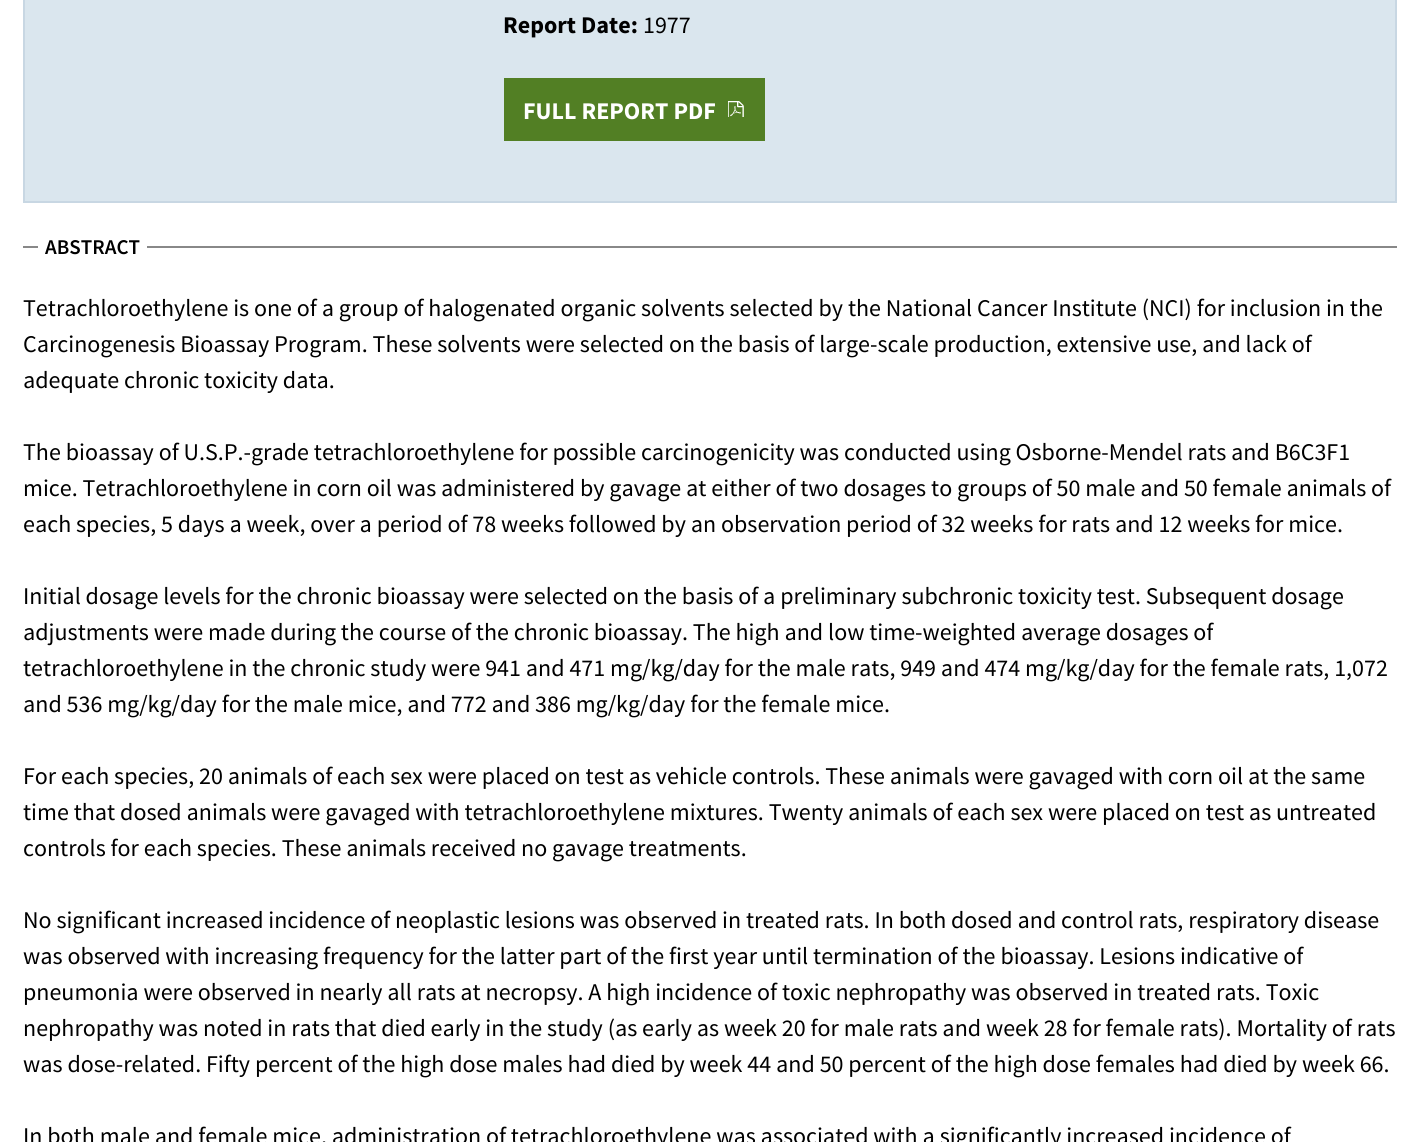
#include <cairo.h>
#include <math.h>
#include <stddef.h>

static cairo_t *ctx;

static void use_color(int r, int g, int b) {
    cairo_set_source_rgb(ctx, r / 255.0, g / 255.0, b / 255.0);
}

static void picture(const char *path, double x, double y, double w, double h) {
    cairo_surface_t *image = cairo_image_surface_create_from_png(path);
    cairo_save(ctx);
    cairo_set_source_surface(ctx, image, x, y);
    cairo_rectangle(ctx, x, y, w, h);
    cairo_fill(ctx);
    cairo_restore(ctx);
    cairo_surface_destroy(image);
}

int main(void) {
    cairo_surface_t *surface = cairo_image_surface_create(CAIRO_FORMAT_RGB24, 1419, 1142);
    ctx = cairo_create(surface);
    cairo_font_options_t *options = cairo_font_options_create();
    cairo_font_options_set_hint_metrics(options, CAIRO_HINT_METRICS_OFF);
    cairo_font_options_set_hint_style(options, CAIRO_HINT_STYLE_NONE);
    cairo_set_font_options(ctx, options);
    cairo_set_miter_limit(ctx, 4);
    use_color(255, 255, 255);
    cairo_paint(ctx);
    use_color(218, 230, 238);
    cairo_rectangle(ctx, 24, -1, 1372, 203);
    cairo_fill_preserve(ctx);
    use_color(200, 215, 227);
    cairo_stroke(ctx);
    cairo_select_font_face(ctx, "Source Sans Pro", CAIRO_FONT_SLANT_NORMAL, CAIRO_FONT_WEIGHT_BOLD);
    cairo_set_font_size(ctx, 24);
    use_color(0, 0, 0);
    cairo_move_to(ctx, 503, 33);
    cairo_show_text(ctx, "Report Date:");
    cairo_select_font_face(ctx, "Source Sans Pro", CAIRO_FONT_SLANT_NORMAL, CAIRO_FONT_WEIGHT_NORMAL);
    cairo_move_to(ctx, 643, 33);
    cairo_show_text(ctx, "1977");
    use_color(82, 127, 36);
    cairo_rectangle(ctx, 504, 78, 261, 63);
    cairo_fill(ctx);
    cairo_select_font_face(ctx, "Source Sans Pro", CAIRO_FONT_SLANT_NORMAL, CAIRO_FONT_WEIGHT_BOLD);
    use_color(255, 255, 255);
    cairo_move_to(ctx, 523, 119);
    cairo_show_text(ctx, "FULL REPORT PDF");
    picture("img1.png", 728, 101, 16, 16);
    use_color(136, 136, 136);
    cairo_rectangle(ctx, 23, 246, 1374, 2);
    cairo_fill(ctx);
    use_color(255, 255, 255);
    cairo_rectangle(ctx, 38, 246, 109, 2);
    cairo_fill(ctx);
    cairo_select_font_face(ctx, "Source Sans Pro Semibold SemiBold", CAIRO_FONT_SLANT_NORMAL, CAIRO_FONT_WEIGHT_NORMAL);
    cairo_set_font_size(ctx, 21);
    use_color(0, 0, 0);
    cairo_move_to(ctx, 45, 254);
    cairo_show_text(ctx, "ABSTRACT");
    cairo_select_font_face(ctx, "Source Sans Pro", CAIRO_FONT_SLANT_NORMAL, CAIRO_FONT_WEIGHT_NORMAL);
    cairo_set_font_size(ctx, 24);
    cairo_move_to(ctx, 23, 316);
    cairo_show_text(ctx, "Tetrachloroethylene is one of a group of halogenated organic solvents selected by the National Cancer Institute (NCI) for inclusion in the");
    cairo_move_to(ctx, 23, 352);
    cairo_show_text(ctx, "Carcinogenesis Bioassay Program. These solvents were selected on the basis of large-scale production, extensive use, and lack of");
    cairo_move_to(ctx, 23, 388);
    cairo_show_text(ctx, "adequate chronic toxicity data.");
    cairo_move_to(ctx, 23, 460);
    cairo_show_text(ctx, "The bioassay of U.S.P.-grade tetrachloroethylene for possible carcinogenicity was conducted using Osborne-Mendel rats and B6C3F1");
    cairo_move_to(ctx, 23, 496);
    cairo_show_text(ctx, "mice. Tetrachloroethylene in corn oil was administered by gavage at either of two dosages to groups of 50 male and 50 female animals of");
    cairo_move_to(ctx, 23, 532);
    cairo_show_text(ctx, "each species, 5 days a week, over a period of 78 weeks followed by an observation period of 32 weeks for rats and 12 weeks for mice.");
    cairo_move_to(ctx, 23, 604);
    cairo_show_text(ctx, "Initial dosage levels for the chronic bioassay were selected on the basis of a preliminary subchronic toxicity test. Subsequent dosage");
    cairo_move_to(ctx, 23, 640);
    cairo_show_text(ctx, "adjustments were made during the course of the chronic bioassay. The high and low time-weighted average dosages of");
    cairo_move_to(ctx, 23, 676);
    cairo_show_text(ctx, "tetrachloroethylene in the chronic study were 941 and 471 mg/kg/day for the male rats, 949 and 474 mg/kg/day for the female rats, 1,072");
    cairo_move_to(ctx, 23, 712);
    cairo_show_text(ctx, "and 536 mg/kg/day for the male mice, and 772 and 386 mg/kg/day for the female mice.");
    cairo_move_to(ctx, 23, 784);
    cairo_show_text(ctx, "For each species, 20 animals of each sex were placed on test as vehicle controls. These animals were gavaged with corn oil at the same");
    cairo_move_to(ctx, 23, 820);
    cairo_show_text(ctx, "time that dosed animals were gavaged with tetrachloroethylene mixtures. Twenty animals of each sex were placed on test as untreated");
    cairo_move_to(ctx, 23, 856);
    cairo_show_text(ctx, "controls for each species. These animals received no gavage treatments.");
    cairo_move_to(ctx, 23, 928);
    cairo_show_text(ctx, "No significant increased incidence of neoplastic lesions was observed in treated rats. In both dosed and control rats, respiratory disease");
    cairo_move_to(ctx, 23, 964);
    cairo_show_text(ctx, "was observed with increasing frequency for the latter part of the first year until termination of the bioassay. Lesions indicative of");
    cairo_move_to(ctx, 23, 1000);
    cairo_show_text(ctx, "pneumonia were observed in nearly all rats at necropsy. A high incidence of toxic nephropathy was observed in treated rats. Toxic");
    cairo_move_to(ctx, 23, 1036);
    cairo_show_text(ctx, "nephropathy was noted in rats that died early in the study (as early as week 20 for male rats and week 28 for female rats). Mortality of rats");
    cairo_move_to(ctx, 23, 1072);
    cairo_show_text(ctx, "was dose-related. Fifty percent of the high dose males had died by week 44 and 50 percent of the high dose females had died by week 66.");
    cairo_move_to(ctx, 23, 1144);
    cairo_show_text(ctx, "In both male and female mice, administration of tetrachloroethylene was associated with a significantly increased incidence of");
    cairo_surface_write_to_png(surface, "result.png");
    cairo_font_options_destroy(options);
    cairo_destroy(ctx);
    cairo_surface_destroy(surface);
    return 0;
}
